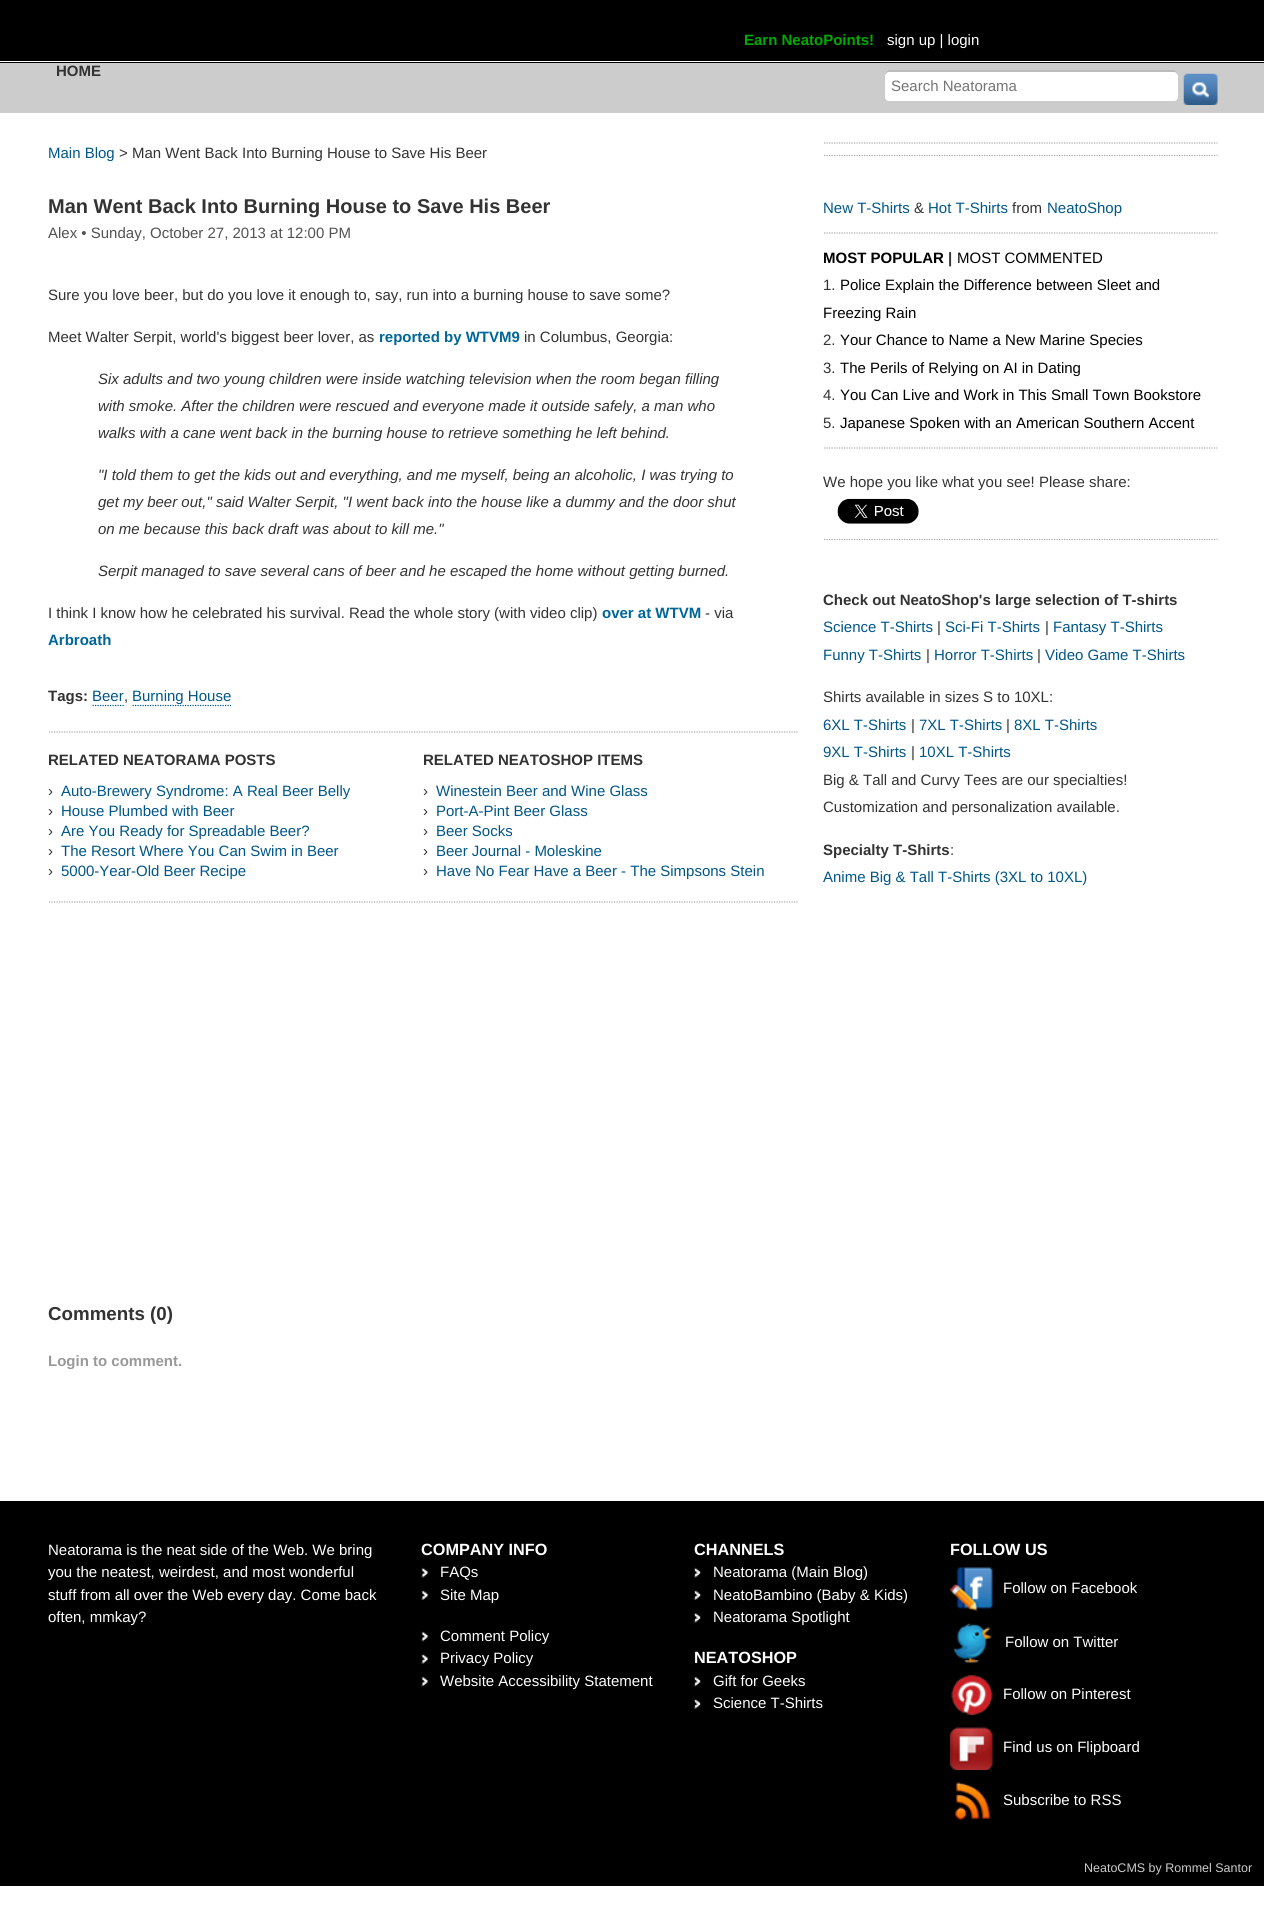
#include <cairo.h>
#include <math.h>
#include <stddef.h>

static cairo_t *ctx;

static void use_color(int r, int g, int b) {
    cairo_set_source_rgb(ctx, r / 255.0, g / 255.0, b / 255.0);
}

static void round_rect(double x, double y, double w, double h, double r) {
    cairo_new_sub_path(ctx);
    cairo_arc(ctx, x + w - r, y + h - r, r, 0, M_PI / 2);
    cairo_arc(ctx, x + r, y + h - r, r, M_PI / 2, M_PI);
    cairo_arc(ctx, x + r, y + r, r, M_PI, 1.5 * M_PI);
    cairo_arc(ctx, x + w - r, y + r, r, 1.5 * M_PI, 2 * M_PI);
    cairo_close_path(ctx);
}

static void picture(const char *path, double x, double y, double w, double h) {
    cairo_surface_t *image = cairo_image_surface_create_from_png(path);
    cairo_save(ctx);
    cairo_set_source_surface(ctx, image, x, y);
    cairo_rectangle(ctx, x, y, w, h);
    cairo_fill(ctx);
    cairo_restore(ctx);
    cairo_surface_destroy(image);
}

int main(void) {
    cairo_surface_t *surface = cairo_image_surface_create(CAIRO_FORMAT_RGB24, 1264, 1927);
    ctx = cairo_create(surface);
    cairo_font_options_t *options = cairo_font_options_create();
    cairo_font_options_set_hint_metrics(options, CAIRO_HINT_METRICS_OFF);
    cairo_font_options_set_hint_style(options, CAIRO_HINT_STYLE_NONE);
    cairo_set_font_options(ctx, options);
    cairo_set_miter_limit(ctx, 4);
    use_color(255, 255, 255);
    cairo_paint(ctx);
    use_color(0, 0, 0);
    cairo_rectangle(ctx, 0, 0, 1264, 63);
    cairo_fill(ctx);
    use_color(255, 255, 255);
    cairo_rectangle(ctx, 0, 61, 1264, 1);
    cairo_fill(ctx);
    cairo_select_font_face(ctx, "Liberation Sans", CAIRO_FONT_SLANT_NORMAL, CAIRO_FONT_WEIGHT_BOLD);
    cairo_set_font_size(ctx, 15);
    use_color(0, 170, 0);
    cairo_move_to(ctx, 744, 45);
    cairo_show_text(ctx, "Earn NeatoPoints!");
    cairo_select_font_face(ctx, "Liberation Sans", CAIRO_FONT_SLANT_NORMAL, CAIRO_FONT_WEIGHT_NORMAL);
    use_color(255, 255, 255);
    cairo_move_to(ctx, 887, 45);
    cairo_show_text(ctx, "sign up | login");
    use_color(204, 204, 204);
    cairo_rectangle(ctx, 0, 63, 1264, 50);
    cairo_fill(ctx);
    cairo_select_font_face(ctx, "Liberation Sans", CAIRO_FONT_SLANT_NORMAL, CAIRO_FONT_WEIGHT_BOLD);
    use_color(51, 51, 51);
    cairo_move_to(ctx, 56, 76);
    cairo_show_text(ctx, "HOME");
    use_color(255, 255, 255);
    round_rect(885, 70, 293, 31, 4);
    cairo_fill(ctx);
    use_color(187, 187, 187);
    cairo_new_path(ctx);
    cairo_move_to(ctx, 889, 72);
    cairo_line_to(ctx, 1174, 72);
    cairo_curve_to(ctx, 1176, 72, 1178, 74, 1178, 76);
    cairo_line_to(ctx, 1178, 74);
    cairo_curve_to(ctx, 1178, 72, 1176, 70, 1174, 70);
    cairo_line_to(ctx, 889, 70);
    cairo_curve_to(ctx, 887, 70, 885, 72, 885, 74);
    cairo_line_to(ctx, 885, 76);
    cairo_curve_to(ctx, 885, 74, 887, 72, 889, 72);
    cairo_close_path(ctx);
    cairo_fill(ctx);
    cairo_select_font_face(ctx, "Liberation Sans", CAIRO_FONT_SLANT_NORMAL, CAIRO_FONT_WEIGHT_NORMAL);
    use_color(117, 117, 117);
    cairo_move_to(ctx, 891, 91);
    cairo_show_text(ctx, "Search Neatorama");
    picture("img1.png", 1183, 73, 35, 32);
    use_color(0, 86, 137);
    cairo_move_to(ctx, 48, 158);
    cairo_show_text(ctx, "Main Blog");
    use_color(51, 51, 51);
    cairo_move_to(ctx, 119, 158);
    cairo_show_text(ctx, "> Man Went Back Into Burning House to Save His Beer");
    cairo_select_font_face(ctx, "Liberation Sans", CAIRO_FONT_SLANT_NORMAL, CAIRO_FONT_WEIGHT_BOLD);
    cairo_set_font_size(ctx, 20);
    cairo_move_to(ctx, 48, 213);
    cairo_show_text(ctx, "Man Went Back Into Burning House to Save His Beer");
    cairo_select_font_face(ctx, "Liberation Sans", CAIRO_FONT_SLANT_NORMAL, CAIRO_FONT_WEIGHT_NORMAL);
    cairo_set_font_size(ctx, 15);
    use_color(82, 82, 82);
    cairo_move_to(ctx, 48, 238);
    cairo_show_text(ctx, "Alex • Sunday, October 27, 2013 at 12:00 PM");
    use_color(51, 51, 51);
    cairo_move_to(ctx, 48, 300);
    cairo_show_text(ctx, "Sure you love beer, but do you love it enough to, say, run into a burning house to save some?");
    cairo_move_to(ctx, 48, 342);
    cairo_show_text(ctx, "Meet Walter Serpit, world's biggest beer lover, as");
    cairo_select_font_face(ctx, "Liberation Sans", CAIRO_FONT_SLANT_NORMAL, CAIRO_FONT_WEIGHT_BOLD);
    use_color(0, 102, 153);
    cairo_move_to(ctx, 379, 342);
    cairo_show_text(ctx, "reported by WTVM9");
    cairo_select_font_face(ctx, "Liberation Sans", CAIRO_FONT_SLANT_NORMAL, CAIRO_FONT_WEIGHT_NORMAL);
    use_color(51, 51, 51);
    cairo_move_to(ctx, 524, 342);
    cairo_show_text(ctx, "in Columbus, Georgia:");
    cairo_select_font_face(ctx, "Liberation Sans", CAIRO_FONT_SLANT_ITALIC, CAIRO_FONT_WEIGHT_NORMAL);
    cairo_move_to(ctx, 98, 384);
    cairo_show_text(ctx, "Six adults and two young children were inside watching television when the room began filling");
    cairo_move_to(ctx, 98, 411);
    cairo_show_text(ctx, "with smoke. After the children were rescued and everyone made it outside safely, a man who");
    cairo_move_to(ctx, 98, 438);
    cairo_show_text(ctx, "walks with a cane went back in the burning house to retrieve something he left behind.");
    cairo_move_to(ctx, 98, 480);
    cairo_show_text(ctx, "\"I told them to get the kids out and everything, and me myself, being an alcoholic, I was trying to");
    cairo_move_to(ctx, 98, 507);
    cairo_show_text(ctx, "get my beer out,\" said Walter Serpit, \"I went back into the house like a dummy and the door shut");
    cairo_move_to(ctx, 98, 534);
    cairo_show_text(ctx, "on me because this back draft was about to kill me.\"");
    cairo_move_to(ctx, 98, 576);
    cairo_show_text(ctx, "Serpit managed to save several cans of beer and he escaped the home without getting burned.");
    cairo_select_font_face(ctx, "Liberation Sans", CAIRO_FONT_SLANT_NORMAL, CAIRO_FONT_WEIGHT_NORMAL);
    cairo_move_to(ctx, 48, 618);
    cairo_show_text(ctx, "I think I know how he celebrated his survival. Read the whole story (with video clip)");
    cairo_select_font_face(ctx, "Liberation Sans", CAIRO_FONT_SLANT_NORMAL, CAIRO_FONT_WEIGHT_BOLD);
    use_color(0, 102, 153);
    cairo_move_to(ctx, 602, 618);
    cairo_show_text(ctx, "over at WTVM");
    cairo_select_font_face(ctx, "Liberation Sans", CAIRO_FONT_SLANT_NORMAL, CAIRO_FONT_WEIGHT_NORMAL);
    use_color(51, 51, 51);
    cairo_move_to(ctx, 705, 618);
    cairo_show_text(ctx, "- via");
    cairo_select_font_face(ctx, "Liberation Sans", CAIRO_FONT_SLANT_NORMAL, CAIRO_FONT_WEIGHT_BOLD);
    use_color(0, 102, 153);
    cairo_move_to(ctx, 48, 645);
    cairo_show_text(ctx, "Arbroath");
    use_color(51, 51, 51);
    cairo_move_to(ctx, 48, 701);
    cairo_show_text(ctx, "Tags:");
    cairo_select_font_face(ctx, "Liberation Sans", CAIRO_FONT_SLANT_NORMAL, CAIRO_FONT_WEIGHT_NORMAL);
    use_color(0, 86, 137);
    cairo_move_to(ctx, 92, 701);
    cairo_show_text(ctx, "Beer");
    cairo_new_path(ctx);
    cairo_move_to(ctx, 92.5, 705.5);
    cairo_line_to(ctx, 124, 705.5);
    cairo_set_line_width(ctx, 1.2);
    cairo_set_dash(ctx, (double[]){1.25, 1.25}, 2, 0);
    cairo_stroke(ctx);
    use_color(51, 51, 51);
    cairo_move_to(ctx, 124, 701);
    cairo_show_text(ctx, ",");
    cairo_new_path(ctx);
    cairo_move_to(ctx, 132.5, 705.5);
    cairo_line_to(ctx, 231, 705.5);
    use_color(0, 86, 137);
    cairo_stroke(ctx);
    cairo_move_to(ctx, 132, 701);
    cairo_show_text(ctx, "Burning House");
    cairo_new_path(ctx);
    cairo_move_to(ctx, 49, 732);
    cairo_line_to(ctx, 799, 732);
    use_color(170, 170, 170);
    cairo_stroke(ctx);
    cairo_select_font_face(ctx, "Liberation Sans", CAIRO_FONT_SLANT_NORMAL, CAIRO_FONT_WEIGHT_BOLD);
    use_color(51, 51, 51);
    cairo_move_to(ctx, 48, 765);
    cairo_show_text(ctx, "RELATED NEATORAMA POSTS");
    cairo_select_font_face(ctx, "Liberation Sans", CAIRO_FONT_SLANT_NORMAL, CAIRO_FONT_WEIGHT_NORMAL);
    cairo_move_to(ctx, 48, 796);
    cairo_show_text(ctx, "›");
    use_color(0, 86, 137);
    cairo_move_to(ctx, 61, 796);
    cairo_show_text(ctx, "Auto-Brewery Syndrome: A Real Beer Belly");
    use_color(51, 51, 51);
    cairo_move_to(ctx, 48, 816);
    cairo_show_text(ctx, "›");
    use_color(0, 86, 137);
    cairo_move_to(ctx, 61, 816);
    cairo_show_text(ctx, "House Plumbed with Beer");
    use_color(51, 51, 51);
    cairo_move_to(ctx, 48, 836);
    cairo_show_text(ctx, "›");
    use_color(0, 86, 137);
    cairo_move_to(ctx, 61, 836);
    cairo_show_text(ctx, "Are You Ready for Spreadable Beer?");
    use_color(51, 51, 51);
    cairo_move_to(ctx, 48, 856);
    cairo_show_text(ctx, "›");
    use_color(0, 86, 137);
    cairo_move_to(ctx, 61, 856);
    cairo_show_text(ctx, "The Resort Where You Can Swim in Beer");
    use_color(51, 51, 51);
    cairo_move_to(ctx, 48, 876);
    cairo_show_text(ctx, "›");
    use_color(0, 86, 137);
    cairo_move_to(ctx, 61, 876);
    cairo_show_text(ctx, "5000-Year-Old Beer Recipe");
    cairo_select_font_face(ctx, "Liberation Sans", CAIRO_FONT_SLANT_NORMAL, CAIRO_FONT_WEIGHT_BOLD);
    use_color(51, 51, 51);
    cairo_move_to(ctx, 423, 765);
    cairo_show_text(ctx, "RELATED NEATOSHOP ITEMS");
    cairo_select_font_face(ctx, "Liberation Sans", CAIRO_FONT_SLANT_NORMAL, CAIRO_FONT_WEIGHT_NORMAL);
    cairo_move_to(ctx, 423, 796);
    cairo_show_text(ctx, "›");
    use_color(0, 86, 137);
    cairo_move_to(ctx, 436, 796);
    cairo_show_text(ctx, "Winestein Beer and Wine Glass");
    use_color(51, 51, 51);
    cairo_move_to(ctx, 423, 816);
    cairo_show_text(ctx, "›");
    use_color(0, 86, 137);
    cairo_move_to(ctx, 436, 816);
    cairo_show_text(ctx, "Port-A-Pint Beer Glass");
    use_color(51, 51, 51);
    cairo_move_to(ctx, 423, 836);
    cairo_show_text(ctx, "›");
    use_color(0, 86, 137);
    cairo_move_to(ctx, 436, 836);
    cairo_show_text(ctx, "Beer Socks");
    use_color(51, 51, 51);
    cairo_move_to(ctx, 423, 856);
    cairo_show_text(ctx, "›");
    use_color(0, 86, 137);
    cairo_move_to(ctx, 436, 856);
    cairo_show_text(ctx, "Beer Journal - Moleskine");
    use_color(51, 51, 51);
    cairo_move_to(ctx, 423, 876);
    cairo_show_text(ctx, "›");
    use_color(0, 86, 137);
    cairo_move_to(ctx, 436, 876);
    cairo_show_text(ctx, "Have No Fear Have a Beer - The Simpsons Stein");
    cairo_new_path(ctx);
    cairo_move_to(ctx, 49, 902);
    cairo_line_to(ctx, 799, 902);
    use_color(170, 170, 170);
    cairo_stroke(ctx);
    cairo_select_font_face(ctx, "Liberation Sans", CAIRO_FONT_SLANT_NORMAL, CAIRO_FONT_WEIGHT_BOLD);
    cairo_set_font_size(ctx, 18.75);
    use_color(51, 51, 51);
    cairo_move_to(ctx, 48, 1320);
    cairo_show_text(ctx, "Comments (0)");
    cairo_set_font_size(ctx, 15);
    use_color(153, 153, 153);
    cairo_move_to(ctx, 48, 1366);
    cairo_show_text(ctx, "Login to comment.");
    cairo_new_path(ctx);
    cairo_move_to(ctx, 824, 143);
    cairo_line_to(ctx, 1217.5, 143);
    use_color(170, 170, 170);
    cairo_stroke(ctx);
    cairo_new_path(ctx);
    cairo_move_to(ctx, 824, 155.5);
    cairo_line_to(ctx, 1217.5, 155.5);
    cairo_stroke(ctx);
    cairo_select_font_face(ctx, "Liberation Sans", CAIRO_FONT_SLANT_NORMAL, CAIRO_FONT_WEIGHT_NORMAL);
    use_color(0, 86, 137);
    cairo_move_to(ctx, 823, 213);
    cairo_show_text(ctx, "New T-Shirts");
    use_color(51, 51, 51);
    cairo_move_to(ctx, 914, 213);
    cairo_show_text(ctx, "&");
    use_color(0, 86, 137);
    cairo_move_to(ctx, 928, 213);
    cairo_show_text(ctx, "Hot T-Shirts");
    use_color(51, 51, 51);
    cairo_move_to(ctx, 1012, 213);
    cairo_show_text(ctx, "from");
    use_color(0, 86, 137);
    cairo_move_to(ctx, 1047, 213);
    cairo_show_text(ctx, "NeatoShop");
    cairo_new_path(ctx);
    cairo_move_to(ctx, 824, 233);
    cairo_line_to(ctx, 1217.5, 233);
    use_color(170, 170, 170);
    cairo_stroke(ctx);
    cairo_select_font_face(ctx, "Liberation Sans", CAIRO_FONT_SLANT_NORMAL, CAIRO_FONT_WEIGHT_BOLD);
    use_color(0, 0, 0);
    cairo_move_to(ctx, 823, 263);
    cairo_show_text(ctx, "MOST POPULAR");
    use_color(51, 51, 51);
    cairo_move_to(ctx, 948, 263);
    cairo_show_text(ctx, "|");
    cairo_select_font_face(ctx, "Liberation Sans", CAIRO_FONT_SLANT_NORMAL, CAIRO_FONT_WEIGHT_NORMAL);
    use_color(0, 0, 0);
    cairo_move_to(ctx, 957, 263);
    cairo_show_text(ctx, "MOST COMMENTED");
    use_color(51, 51, 51);
    cairo_move_to(ctx, 823, 290);
    cairo_show_text(ctx, "1.");
    use_color(0, 0, 0);
    cairo_move_to(ctx, 840, 290);
    cairo_show_text(ctx, "Police Explain the Difference between Sleet and");
    cairo_move_to(ctx, 823, 318);
    cairo_show_text(ctx, "Freezing Rain");
    use_color(51, 51, 51);
    cairo_move_to(ctx, 823, 345);
    cairo_show_text(ctx, "2.");
    use_color(0, 0, 0);
    cairo_move_to(ctx, 840, 345);
    cairo_show_text(ctx, "Your Chance to Name a New Marine Species");
    use_color(51, 51, 51);
    cairo_move_to(ctx, 823, 373);
    cairo_show_text(ctx, "3.");
    use_color(0, 0, 0);
    cairo_move_to(ctx, 840, 373);
    cairo_show_text(ctx, "The Perils of Relying on AI in Dating");
    use_color(51, 51, 51);
    cairo_move_to(ctx, 823, 400);
    cairo_show_text(ctx, "4.");
    use_color(0, 0, 0);
    cairo_move_to(ctx, 840, 400);
    cairo_show_text(ctx, "You Can Live and Work in This Small Town Bookstore");
    use_color(51, 51, 51);
    cairo_move_to(ctx, 823, 428);
    cairo_show_text(ctx, "5.");
    use_color(0, 0, 0);
    cairo_move_to(ctx, 840, 428);
    cairo_show_text(ctx, "Japanese Spoken with an American Southern Accent");
    cairo_new_path(ctx);
    cairo_move_to(ctx, 824, 448);
    cairo_line_to(ctx, 1217.5, 448);
    use_color(170, 170, 170);
    cairo_stroke(ctx);
    use_color(51, 51, 51);
    cairo_move_to(ctx, 823, 487);
    cairo_show_text(ctx, "We hope you like what you see! Please share:");
    picture("img2.png", 837, 498, 82, 26);
    cairo_new_path(ctx);
    cairo_move_to(ctx, 824, 539.5);
    cairo_line_to(ctx, 1217.5, 539.5);
    use_color(170, 170, 170);
    cairo_stroke(ctx);
    cairo_select_font_face(ctx, "Liberation Sans", CAIRO_FONT_SLANT_NORMAL, CAIRO_FONT_WEIGHT_BOLD);
    use_color(51, 51, 51);
    cairo_move_to(ctx, 823, 605);
    cairo_show_text(ctx, "Check out NeatoShop's large selection of T-shirts");
    cairo_select_font_face(ctx, "Liberation Sans", CAIRO_FONT_SLANT_NORMAL, CAIRO_FONT_WEIGHT_NORMAL);
    use_color(0, 86, 137);
    cairo_move_to(ctx, 823, 632);
    cairo_show_text(ctx, "Science T-Shirts");
    use_color(51, 51, 51);
    cairo_move_to(ctx, 937, 632);
    cairo_show_text(ctx, "|");
    use_color(0, 86, 137);
    cairo_move_to(ctx, 945, 632);
    cairo_show_text(ctx, "Sci-Fi T-Shirts");
    use_color(51, 51, 51);
    cairo_move_to(ctx, 1045, 632);
    cairo_show_text(ctx, "|");
    use_color(0, 86, 137);
    cairo_move_to(ctx, 1053, 632);
    cairo_show_text(ctx, "Fantasy T-Shirts");
    cairo_move_to(ctx, 823, 660);
    cairo_show_text(ctx, "Funny T-Shirts");
    use_color(51, 51, 51);
    cairo_move_to(ctx, 926, 660);
    cairo_show_text(ctx, "|");
    use_color(0, 86, 137);
    cairo_move_to(ctx, 934, 660);
    cairo_show_text(ctx, "Horror T-Shirts");
    use_color(51, 51, 51);
    cairo_move_to(ctx, 1037, 660);
    cairo_show_text(ctx, "|");
    use_color(0, 86, 137);
    cairo_move_to(ctx, 1045, 660);
    cairo_show_text(ctx, "Video Game T-Shirts");
    use_color(51, 51, 51);
    cairo_move_to(ctx, 823, 702);
    cairo_show_text(ctx, "Shirts available in sizes S to 10XL:");
    use_color(0, 86, 137);
    cairo_move_to(ctx, 823, 730);
    cairo_show_text(ctx, "6XL T-Shirts");
    use_color(51, 51, 51);
    cairo_move_to(ctx, 911, 730);
    cairo_show_text(ctx, "|");
    use_color(0, 86, 137);
    cairo_move_to(ctx, 919, 730);
    cairo_show_text(ctx, "7XL T-Shirts");
    use_color(51, 51, 51);
    cairo_move_to(ctx, 1006, 730);
    cairo_show_text(ctx, "|");
    use_color(0, 86, 137);
    cairo_move_to(ctx, 1014, 730);
    cairo_show_text(ctx, "8XL T-Shirts");
    cairo_move_to(ctx, 823, 757);
    cairo_show_text(ctx, "9XL T-Shirts");
    use_color(51, 51, 51);
    cairo_move_to(ctx, 911, 757);
    cairo_show_text(ctx, "|");
    use_color(0, 86, 137);
    cairo_move_to(ctx, 919, 757);
    cairo_show_text(ctx, "10XL T-Shirts");
    use_color(51, 51, 51);
    cairo_move_to(ctx, 823, 785);
    cairo_show_text(ctx, "Big & Tall and Curvy Tees are our specialties!");
    cairo_move_to(ctx, 823, 812);
    cairo_show_text(ctx, "Customization and personalization available.");
    cairo_select_font_face(ctx, "Liberation Sans", CAIRO_FONT_SLANT_NORMAL, CAIRO_FONT_WEIGHT_BOLD);
    cairo_move_to(ctx, 823, 855);
    cairo_show_text(ctx, "Specialty T-Shirts");
    cairo_select_font_face(ctx, "Liberation Sans", CAIRO_FONT_SLANT_NORMAL, CAIRO_FONT_WEIGHT_NORMAL);
    cairo_move_to(ctx, 950, 855);
    cairo_show_text(ctx, ":");
    use_color(0, 86, 137);
    cairo_move_to(ctx, 823, 882);
    cairo_show_text(ctx, "Anime Big & Tall T-Shirts (3XL to 10XL)");
    use_color(0, 0, 0);
    cairo_rectangle(ctx, 0, 1501, 1264, 385);
    cairo_fill(ctx);
    use_color(255, 255, 255);
    cairo_move_to(ctx, 48, 1555);
    cairo_show_text(ctx, "Neatorama is the neat side of the Web. We bring");
    cairo_move_to(ctx, 48, 1577);
    cairo_show_text(ctx, "you the neatest, weirdest, and most wonderful");
    cairo_move_to(ctx, 48, 1600);
    cairo_show_text(ctx, "stuff from all over the Web every day. Come back");
    cairo_move_to(ctx, 48, 1622);
    cairo_show_text(ctx, "often, mmkay?");
    cairo_select_font_face(ctx, "Liberation Sans", CAIRO_FONT_SLANT_NORMAL, CAIRO_FONT_WEIGHT_BOLD);
    cairo_set_font_size(ctx, 16.25);
    cairo_move_to(ctx, 421, 1555);
    cairo_show_text(ctx, "COMPANY INFO");
    picture("img3.png", 421, 1567, 8, 11);
    cairo_select_font_face(ctx, "Liberation Sans", CAIRO_FONT_SLANT_NORMAL, CAIRO_FONT_WEIGHT_NORMAL);
    cairo_set_font_size(ctx, 15);
    cairo_move_to(ctx, 440, 1577);
    cairo_show_text(ctx, "FAQs");
    picture("img4.png", 421, 1590, 8, 10);
    cairo_move_to(ctx, 440, 1600);
    cairo_show_text(ctx, "Site Map");
    picture("img5.png", 421, 1631, 8, 11);
    cairo_move_to(ctx, 440, 1641);
    cairo_show_text(ctx, "Comment Policy");
    picture("img6.png", 421, 1653, 8, 11);
    cairo_move_to(ctx, 440, 1663);
    cairo_show_text(ctx, "Privacy Policy");
    picture("img5.png", 421, 1676, 8, 11);
    cairo_move_to(ctx, 440, 1686);
    cairo_show_text(ctx, "Website Accessibility Statement");
    cairo_select_font_face(ctx, "Liberation Sans", CAIRO_FONT_SLANT_NORMAL, CAIRO_FONT_WEIGHT_BOLD);
    cairo_set_font_size(ctx, 16.25);
    cairo_move_to(ctx, 694, 1555);
    cairo_show_text(ctx, "CHANNELS");
    picture("img7.png", 693, 1567, 8, 11);
    cairo_select_font_face(ctx, "Liberation Sans", CAIRO_FONT_SLANT_NORMAL, CAIRO_FONT_WEIGHT_NORMAL);
    cairo_set_font_size(ctx, 15);
    cairo_move_to(ctx, 713, 1577);
    cairo_show_text(ctx, "Neatorama (Main Blog)");
    picture("img8.png", 693, 1590, 9, 10);
    cairo_move_to(ctx, 713, 1600);
    cairo_show_text(ctx, "NeatoBambino (Baby & Kids)");
    picture("img7.png", 693, 1612, 8, 11);
    cairo_move_to(ctx, 713, 1622);
    cairo_show_text(ctx, "Neatorama Spotlight");
    cairo_select_font_face(ctx, "Liberation Sans", CAIRO_FONT_SLANT_NORMAL, CAIRO_FONT_WEIGHT_BOLD);
    cairo_set_font_size(ctx, 16.25);
    cairo_move_to(ctx, 694, 1663);
    cairo_show_text(ctx, "NEATOSHOP");
    picture("img9.png", 693, 1676, 8, 11);
    cairo_select_font_face(ctx, "Liberation Sans", CAIRO_FONT_SLANT_NORMAL, CAIRO_FONT_WEIGHT_NORMAL);
    cairo_set_font_size(ctx, 15);
    cairo_move_to(ctx, 713, 1686);
    cairo_show_text(ctx, "Gift for Geeks");
    picture("img10.png", 693, 1698, 9, 11);
    cairo_move_to(ctx, 713, 1708);
    cairo_show_text(ctx, "Science T-Shirts");
    cairo_select_font_face(ctx, "Liberation Sans", CAIRO_FONT_SLANT_NORMAL, CAIRO_FONT_WEIGHT_BOLD);
    cairo_set_font_size(ctx, 16.25);
    cairo_move_to(ctx, 950, 1555);
    cairo_show_text(ctx, "FOLLOW US");
    picture("img11.png", 950, 1567, 43, 45);
    cairo_select_font_face(ctx, "Liberation Sans", CAIRO_FONT_SLANT_NORMAL, CAIRO_FONT_WEIGHT_NORMAL);
    cairo_set_font_size(ctx, 15);
    cairo_move_to(ctx, 1003, 1593);
    cairo_show_text(ctx, "Follow on Facebook");
    picture("img12.png", 953, 1623, 39, 40);
    cairo_move_to(ctx, 1005, 1647);
    cairo_show_text(ctx, "Follow on Twitter");
    picture("img13.png", 951, 1675, 42, 40);
    cairo_move_to(ctx, 1003, 1699);
    cairo_show_text(ctx, "Follow on Pinterest");
    picture("img14.png", 950, 1727, 43, 43);
    cairo_move_to(ctx, 1003, 1752);
    cairo_show_text(ctx, "Find us on Flipboard");
    picture("img15.png", 954, 1782, 37, 38);
    cairo_move_to(ctx, 1003, 1805);
    cairo_show_text(ctx, "Subscribe to RSS");
    cairo_set_font_size(ctx, 12.5);
    use_color(204, 204, 204);
    cairo_move_to(ctx, 1084, 1872);
    cairo_show_text(ctx, "NeatoCMS by Rommel Santor");
    cairo_surface_write_to_png(surface, "result.png");
    cairo_font_options_destroy(options);
    cairo_destroy(ctx);
    cairo_surface_destroy(surface);
    return 0;
}
